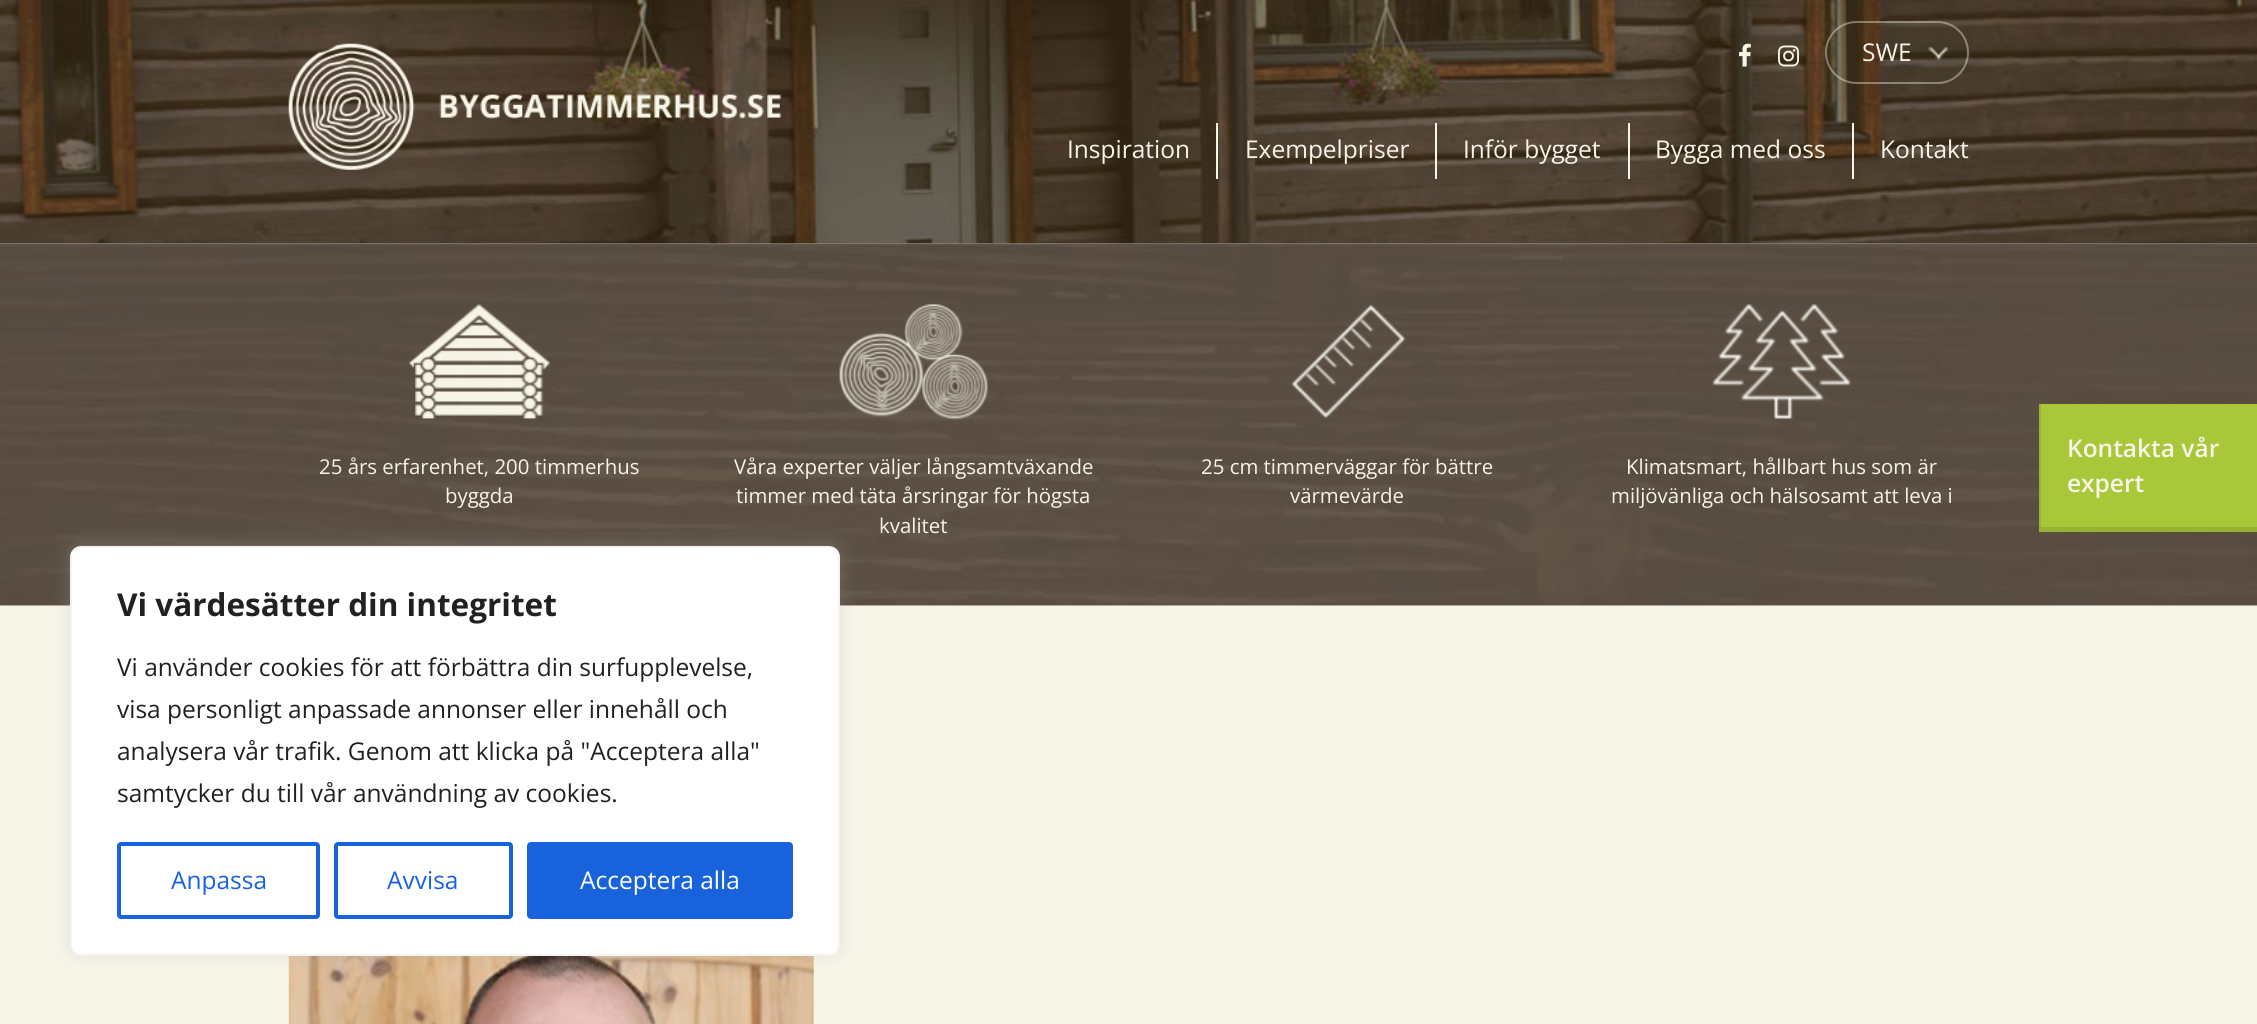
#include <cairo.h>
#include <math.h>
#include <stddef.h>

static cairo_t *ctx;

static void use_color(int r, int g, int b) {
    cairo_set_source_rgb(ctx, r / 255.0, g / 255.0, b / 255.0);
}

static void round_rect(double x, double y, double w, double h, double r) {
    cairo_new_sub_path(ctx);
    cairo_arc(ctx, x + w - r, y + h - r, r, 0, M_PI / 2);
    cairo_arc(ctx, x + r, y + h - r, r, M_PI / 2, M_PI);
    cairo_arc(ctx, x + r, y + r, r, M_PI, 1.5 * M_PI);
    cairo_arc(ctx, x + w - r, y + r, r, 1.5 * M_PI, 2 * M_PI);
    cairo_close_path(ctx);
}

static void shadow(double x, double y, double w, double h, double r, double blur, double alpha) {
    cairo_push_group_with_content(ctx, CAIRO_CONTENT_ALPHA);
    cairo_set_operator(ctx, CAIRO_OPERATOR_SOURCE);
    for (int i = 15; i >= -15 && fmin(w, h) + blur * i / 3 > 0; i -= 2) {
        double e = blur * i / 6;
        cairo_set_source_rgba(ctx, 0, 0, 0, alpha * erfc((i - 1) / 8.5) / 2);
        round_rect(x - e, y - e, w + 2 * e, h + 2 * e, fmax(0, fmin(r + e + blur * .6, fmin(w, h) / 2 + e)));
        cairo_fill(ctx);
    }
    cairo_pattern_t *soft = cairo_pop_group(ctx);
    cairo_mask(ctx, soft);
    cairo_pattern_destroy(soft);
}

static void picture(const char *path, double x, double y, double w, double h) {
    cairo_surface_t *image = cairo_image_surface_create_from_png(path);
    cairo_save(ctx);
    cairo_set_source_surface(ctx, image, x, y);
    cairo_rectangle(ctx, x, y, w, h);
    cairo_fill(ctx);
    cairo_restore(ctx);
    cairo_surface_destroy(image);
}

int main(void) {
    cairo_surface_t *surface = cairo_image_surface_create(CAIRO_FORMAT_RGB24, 2257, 1024);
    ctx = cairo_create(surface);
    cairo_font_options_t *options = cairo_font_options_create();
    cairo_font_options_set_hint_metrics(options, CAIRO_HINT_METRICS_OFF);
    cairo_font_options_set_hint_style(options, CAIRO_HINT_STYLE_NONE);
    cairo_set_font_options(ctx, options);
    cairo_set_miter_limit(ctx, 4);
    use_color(255, 255, 255);
    cairo_paint(ctx);
    picture("img6.png", 0, 243, 2257, 363);
    picture("img1.png", 0, 0, 2257, 244);
    picture("img2.png", 288, 43, 494, 127);
    picture("img3.png", 1739, 43, 12, 24);
    picture("img4.png", 1778, 45, 21, 22);
    round_rect(1826, 22, 142, 61, 30.5);
    cairo_set_source_rgba(ctx, 0.969, 0.961, 0.91, 0.4);
    cairo_stroke(ctx);
    cairo_select_font_face(ctx, "Open Sans", CAIRO_FONT_SLANT_NORMAL, CAIRO_FONT_WEIGHT_NORMAL);
    cairo_set_font_size(ctx, 24.5);
    use_color(247, 245, 232);
    cairo_move_to(ctx, 1862, 61);
    cairo_show_text(ctx, "SWE");
    picture("img5.png", 1928, 46, 21, 14);
    cairo_move_to(ctx, 1067, 158);
    cairo_show_text(ctx, "Inspiration");
    cairo_rectangle(ctx, 1216, 123, 2, 56);
    cairo_fill(ctx);
    cairo_move_to(ctx, 1245, 158);
    cairo_show_text(ctx, "Exempelpriser");
    cairo_rectangle(ctx, 1435, 123, 2, 56);
    cairo_fill(ctx);
    cairo_move_to(ctx, 1463, 158);
    cairo_show_text(ctx, "Inför bygget");
    cairo_rectangle(ctx, 1628, 123, 2, 56);
    cairo_fill(ctx);
    cairo_move_to(ctx, 1655, 158);
    cairo_show_text(ctx, "Bygga med oss");
    cairo_rectangle(ctx, 1852, 123, 2, 56);
    cairo_fill(ctx);
    cairo_move_to(ctx, 1880, 158);
    cairo_show_text(ctx, "Kontakt");
    picture("img7.png", 409, 304, 141, 115);
    cairo_set_font_size(ctx, 20.4);
    cairo_move_to(ctx, 319, 474);
    cairo_show_text(ctx, "25 års erfarenhet, 200 timmerhus");
    cairo_move_to(ctx, 445, 503);
    cairo_show_text(ctx, "byggda");
    picture("img8.png", 839, 304, 150, 116);
    cairo_move_to(ctx, 734, 474);
    cairo_show_text(ctx, "Våra experter väljer långsamtväxande");
    cairo_move_to(ctx, 736, 503);
    cairo_show_text(ctx, "timmer med täta årsringar för högsta");
    cairo_move_to(ctx, 879, 533);
    cairo_show_text(ctx, "kvalitet");
    picture("img9.png", 1291, 304, 115, 115);
    cairo_move_to(ctx, 1201, 474);
    cairo_show_text(ctx, "25 cm timmerväggar för bättre");
    cairo_move_to(ctx, 1290, 503);
    cairo_show_text(ctx, "värmevärde");
    picture("img10.png", 1712, 304, 139, 115);
    cairo_move_to(ctx, 1626, 474);
    cairo_show_text(ctx, "Klimatsmart, hållbart hus som är");
    cairo_move_to(ctx, 1611, 503);
    cairo_show_text(ctx, "miljövänliga och hälsosamt att leva i");
    use_color(168, 199, 57);
    cairo_rectangle(ctx, 2041, 404, 216, 123);
    cairo_fill(ctx);
    use_color(151, 179, 51);
    cairo_rectangle(ctx, 2039, 527, 218, 5);
    cairo_fill(ctx);
    cairo_rectangle(ctx, 2039, 404, 2, 128);
    cairo_fill(ctx);
    cairo_select_font_face(ctx, "Open Sans SemiBold", CAIRO_FONT_SLANT_NORMAL, CAIRO_FONT_WEIGHT_NORMAL);
    cairo_set_font_size(ctx, 24.5);
    use_color(247, 245, 232);
    cairo_move_to(ctx, 2067, 457);
    cairo_show_text(ctx, "Kontakta vår");
    cairo_move_to(ctx, 2067, 492);
    cairo_show_text(ctx, "expert");
    cairo_rectangle(ctx, 0, 606, 2257, 418);
    cairo_fill(ctx);
    picture("img11.png", 288, 956, 526, 68);
    use_color(172, 171, 171);
    shadow(70, 544, 770, 410, 11, 9, 0.3);
    use_color(255, 255, 255);
    round_rect(71, 547, 768, 408, 10);
    cairo_fill_preserve(ctx);
    use_color(244, 244, 244);
    cairo_stroke(ctx);
    cairo_select_font_face(ctx, "Open Sans", CAIRO_FONT_SLANT_NORMAL, CAIRO_FONT_WEIGHT_BOLD);
    cairo_set_font_size(ctx, 31.5);
    use_color(33, 33, 33);
    cairo_move_to(ctx, 117, 616);
    cairo_show_text(ctx, "Vi värdesätter din integritet");
    cairo_select_font_face(ctx, "Open Sans", CAIRO_FONT_SLANT_NORMAL, CAIRO_FONT_WEIGHT_NORMAL);
    cairo_set_font_size(ctx, 24.5);
    cairo_move_to(ctx, 117, 676);
    cairo_show_text(ctx, "Vi använder cookies för att förbättra din surfupplevelse,");
    cairo_move_to(ctx, 117, 718);
    cairo_show_text(ctx, "visa personligt anpassade annonser eller innehåll och");
    cairo_move_to(ctx, 117, 760);
    cairo_show_text(ctx, "analysera vår trafik. Genom att klicka på \"Acceptera alla\"");
    cairo_move_to(ctx, 117, 802);
    cairo_show_text(ctx, "samtycker du till vår användning av cookies.");
    round_rect(119, 844, 199, 73, 2);
    use_color(24, 99, 220);
    cairo_set_line_width(ctx, 4);
    cairo_stroke(ctx);
    cairo_move_to(ctx, 171, 889);
    cairo_show_text(ctx, "Anpassa");
    round_rect(336, 844, 175, 73, 2);
    cairo_stroke(ctx);
    cairo_move_to(ctx, 387, 889);
    cairo_show_text(ctx, "Avvisa");
    round_rect(529, 844, 262, 73, 2);
    cairo_fill_preserve(ctx);
    cairo_stroke(ctx);
    use_color(255, 255, 255);
    cairo_move_to(ctx, 580, 889);
    cairo_show_text(ctx, "Acceptera alla");
    cairo_surface_write_to_png(surface, "result.png");
    cairo_font_options_destroy(options);
    cairo_destroy(ctx);
    cairo_surface_destroy(surface);
    return 0;
}
